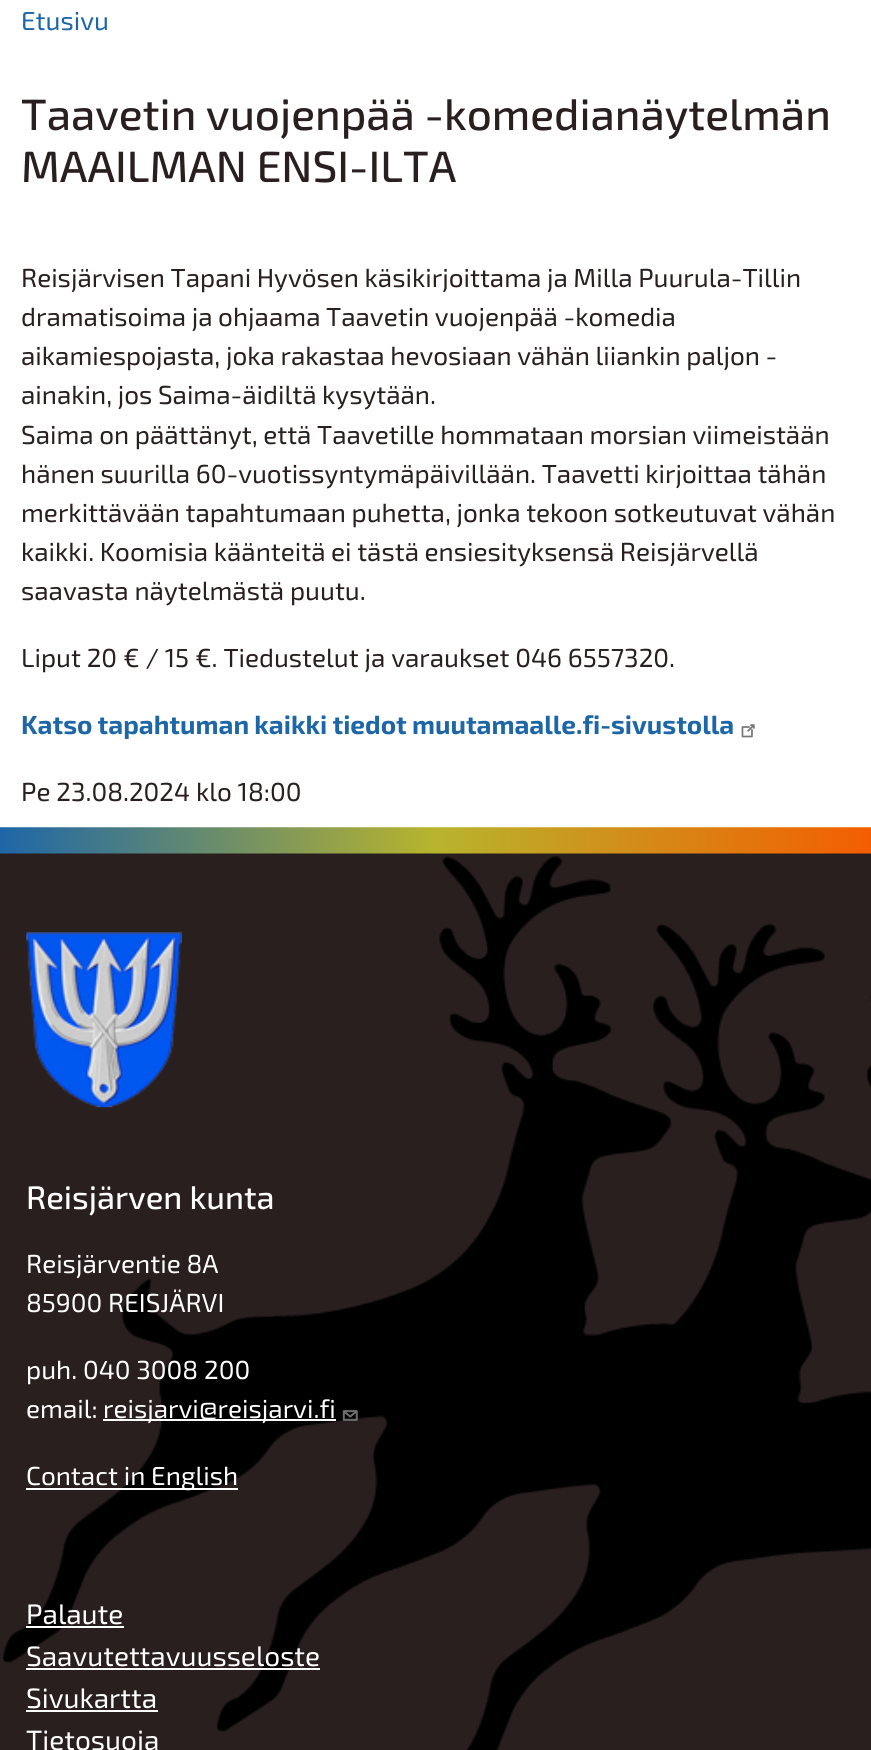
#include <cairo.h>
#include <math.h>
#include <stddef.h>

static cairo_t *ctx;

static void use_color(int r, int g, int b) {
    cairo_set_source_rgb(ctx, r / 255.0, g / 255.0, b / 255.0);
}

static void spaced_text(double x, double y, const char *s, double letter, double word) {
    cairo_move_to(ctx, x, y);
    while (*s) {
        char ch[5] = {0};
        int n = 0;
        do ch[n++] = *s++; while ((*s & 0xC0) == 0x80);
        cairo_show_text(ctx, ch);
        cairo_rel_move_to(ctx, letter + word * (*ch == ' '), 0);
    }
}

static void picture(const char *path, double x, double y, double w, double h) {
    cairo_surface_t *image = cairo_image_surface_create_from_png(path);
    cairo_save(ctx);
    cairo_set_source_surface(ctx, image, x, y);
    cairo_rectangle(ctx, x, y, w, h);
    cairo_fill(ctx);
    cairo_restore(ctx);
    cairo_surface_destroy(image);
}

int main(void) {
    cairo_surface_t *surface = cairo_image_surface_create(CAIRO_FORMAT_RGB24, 871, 1750);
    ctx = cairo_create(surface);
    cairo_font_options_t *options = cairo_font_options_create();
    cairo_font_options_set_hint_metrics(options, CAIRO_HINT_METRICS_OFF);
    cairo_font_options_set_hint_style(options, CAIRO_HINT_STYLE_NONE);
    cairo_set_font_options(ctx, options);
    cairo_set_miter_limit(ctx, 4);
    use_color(255, 255, 255);
    cairo_paint(ctx);
    cairo_select_font_face(ctx, "Exo 2", CAIRO_FONT_SLANT_NORMAL, CAIRO_FONT_WEIGHT_NORMAL);
    cairo_set_font_size(ctx, 26.1);
    use_color(29, 102, 168);
    cairo_move_to(ctx, 21, 30);
    cairo_show_text(ctx, "Etusivu");
    cairo_select_font_face(ctx, "Exo 2 Medium", CAIRO_FONT_SLANT_NORMAL, CAIRO_FONT_WEIGHT_NORMAL);
    cairo_set_font_size(ctx, 43.9);
    use_color(41, 31, 30);
    cairo_move_to(ctx, 21, 130);
    cairo_show_text(ctx, "Taavetin vuojenpää -komedianäytelmän");
    cairo_move_to(ctx, 21, 182);
    cairo_show_text(ctx, "MAAILMAN ENSI-ILTA");
    cairo_select_font_face(ctx, "Exo 2", CAIRO_FONT_SLANT_NORMAL, CAIRO_FONT_WEIGHT_NORMAL);
    cairo_set_font_size(ctx, 26.1);
    spaced_text(21, 287, "Reisjärvisen Tapani Hyvösen käsikirjoittama ja Milla Puurula-Tillin", 0, -0.25);
    spaced_text(21, 326, "dramatisoima ja ohjaama Taavetin vuojenpää -komedia", 0, -0.25);
    spaced_text(21, 365, "aikamiespojasta, joka rakastaa hevosiaan vähän liiankin paljon -", 0, -0.25);
    spaced_text(21, 404, "ainakin, jos Saima-äidiltä kysytään.", 0, -0.25);
    spaced_text(21, 444, "Saima on päättänyt, että Taavetille hommataan morsian viimeistään", 0, -0.25);
    spaced_text(21, 483, "hänen suurilla 60-vuotissyntymäpäivillään. Taavetti kirjoittaa tähän", 0, -0.25);
    spaced_text(21, 522, "merkittävään tapahtumaan puhetta, jonka tekoon sotkeutuvat vähän", 0, -0.25);
    spaced_text(21, 561, "kaikki. Koomisia käänteitä ei tästä ensiesityksensä Reisjärvellä", 0, -0.25);
    cairo_move_to(ctx, 21, 600);
    cairo_show_text(ctx, "saavasta näytelmästä puutu.");
    cairo_move_to(ctx, 21, 667);
    cairo_show_text(ctx, "Liput 20 € / 15 €. Tiedustelut ja varaukset 046 6557320.");
    cairo_select_font_face(ctx, "Exo 2", CAIRO_FONT_SLANT_NORMAL, CAIRO_FONT_WEIGHT_BOLD);
    use_color(29, 102, 168);
    spaced_text(21, 734, "Katso tapahtuman kaikki tiedot muutamaalle.fi-sivustolla", 0, -0.5);
    picture("img1.png", 741, 724, 14, 14);
    cairo_select_font_face(ctx, "Exo 2", CAIRO_FONT_SLANT_NORMAL, CAIRO_FONT_WEIGHT_NORMAL);
    use_color(41, 31, 30);
    cairo_move_to(ctx, 21, 801);
    cairo_show_text(ctx, "Pe 23.08.2024 klo 18:00");
    cairo_rectangle(ctx, 0, 853, 871, 897);
    cairo_fill(ctx);
    picture("img2.png", 3, 856, 868, 894);
    picture("img3.png", 0, 827, 871, 27);
    picture("img4.png", 26, 932, 156, 176);
    cairo_select_font_face(ctx, "Exo 2 Medium", CAIRO_FONT_SLANT_NORMAL, CAIRO_FONT_WEIGHT_NORMAL);
    cairo_set_font_size(ctx, 32.5);
    use_color(255, 255, 255);
    cairo_move_to(ctx, 26, 1209);
    cairo_show_text(ctx, "Reisjärven kunta");
    cairo_select_font_face(ctx, "Exo 2", CAIRO_FONT_SLANT_NORMAL, CAIRO_FONT_WEIGHT_NORMAL);
    cairo_set_font_size(ctx, 26.1);
    cairo_move_to(ctx, 26, 1273);
    cairo_show_text(ctx, "Reisjärventie 8A");
    cairo_move_to(ctx, 26, 1312);
    cairo_show_text(ctx, "85900 REISJÄRVI");
    cairo_move_to(ctx, 26, 1379);
    cairo_show_text(ctx, "puh. 040 3008 200");
    cairo_move_to(ctx, 26, 1418);
    cairo_show_text(ctx, "email:");
    cairo_rectangle(ctx, 103, 1419, 233, 2);
    cairo_fill(ctx);
    cairo_move_to(ctx, 103, 1418);
    cairo_show_text(ctx, "reisjarvi@reisjarvi.fi");
    picture("img5.png", 342, 1410, 16, 11);
    cairo_rectangle(ctx, 26, 1488, 212, 2);
    cairo_fill(ctx);
    cairo_move_to(ctx, 26, 1485);
    cairo_show_text(ctx, "Contact in English");
    cairo_set_font_size(ctx, 28);
    cairo_move_to(ctx, 26, 1624);
    cairo_show_text(ctx, "Palaute");
    cairo_rectangle(ctx, 26, 1626, 98, 2);
    cairo_fill(ctx);
    cairo_move_to(ctx, 26, 1666);
    cairo_show_text(ctx, "Saavutettavuusseloste");
    cairo_rectangle(ctx, 26, 1668, 294, 2);
    cairo_fill(ctx);
    cairo_move_to(ctx, 26, 1708);
    cairo_show_text(ctx, "Sivukartta");
    cairo_rectangle(ctx, 26, 1710, 132, 2);
    cairo_fill(ctx);
    cairo_move_to(ctx, 26, 1750);
    cairo_show_text(ctx, "Tietosuoja");
    cairo_surface_write_to_png(surface, "result.png");
    cairo_font_options_destroy(options);
    cairo_destroy(ctx);
    cairo_surface_destroy(surface);
    return 0;
}
